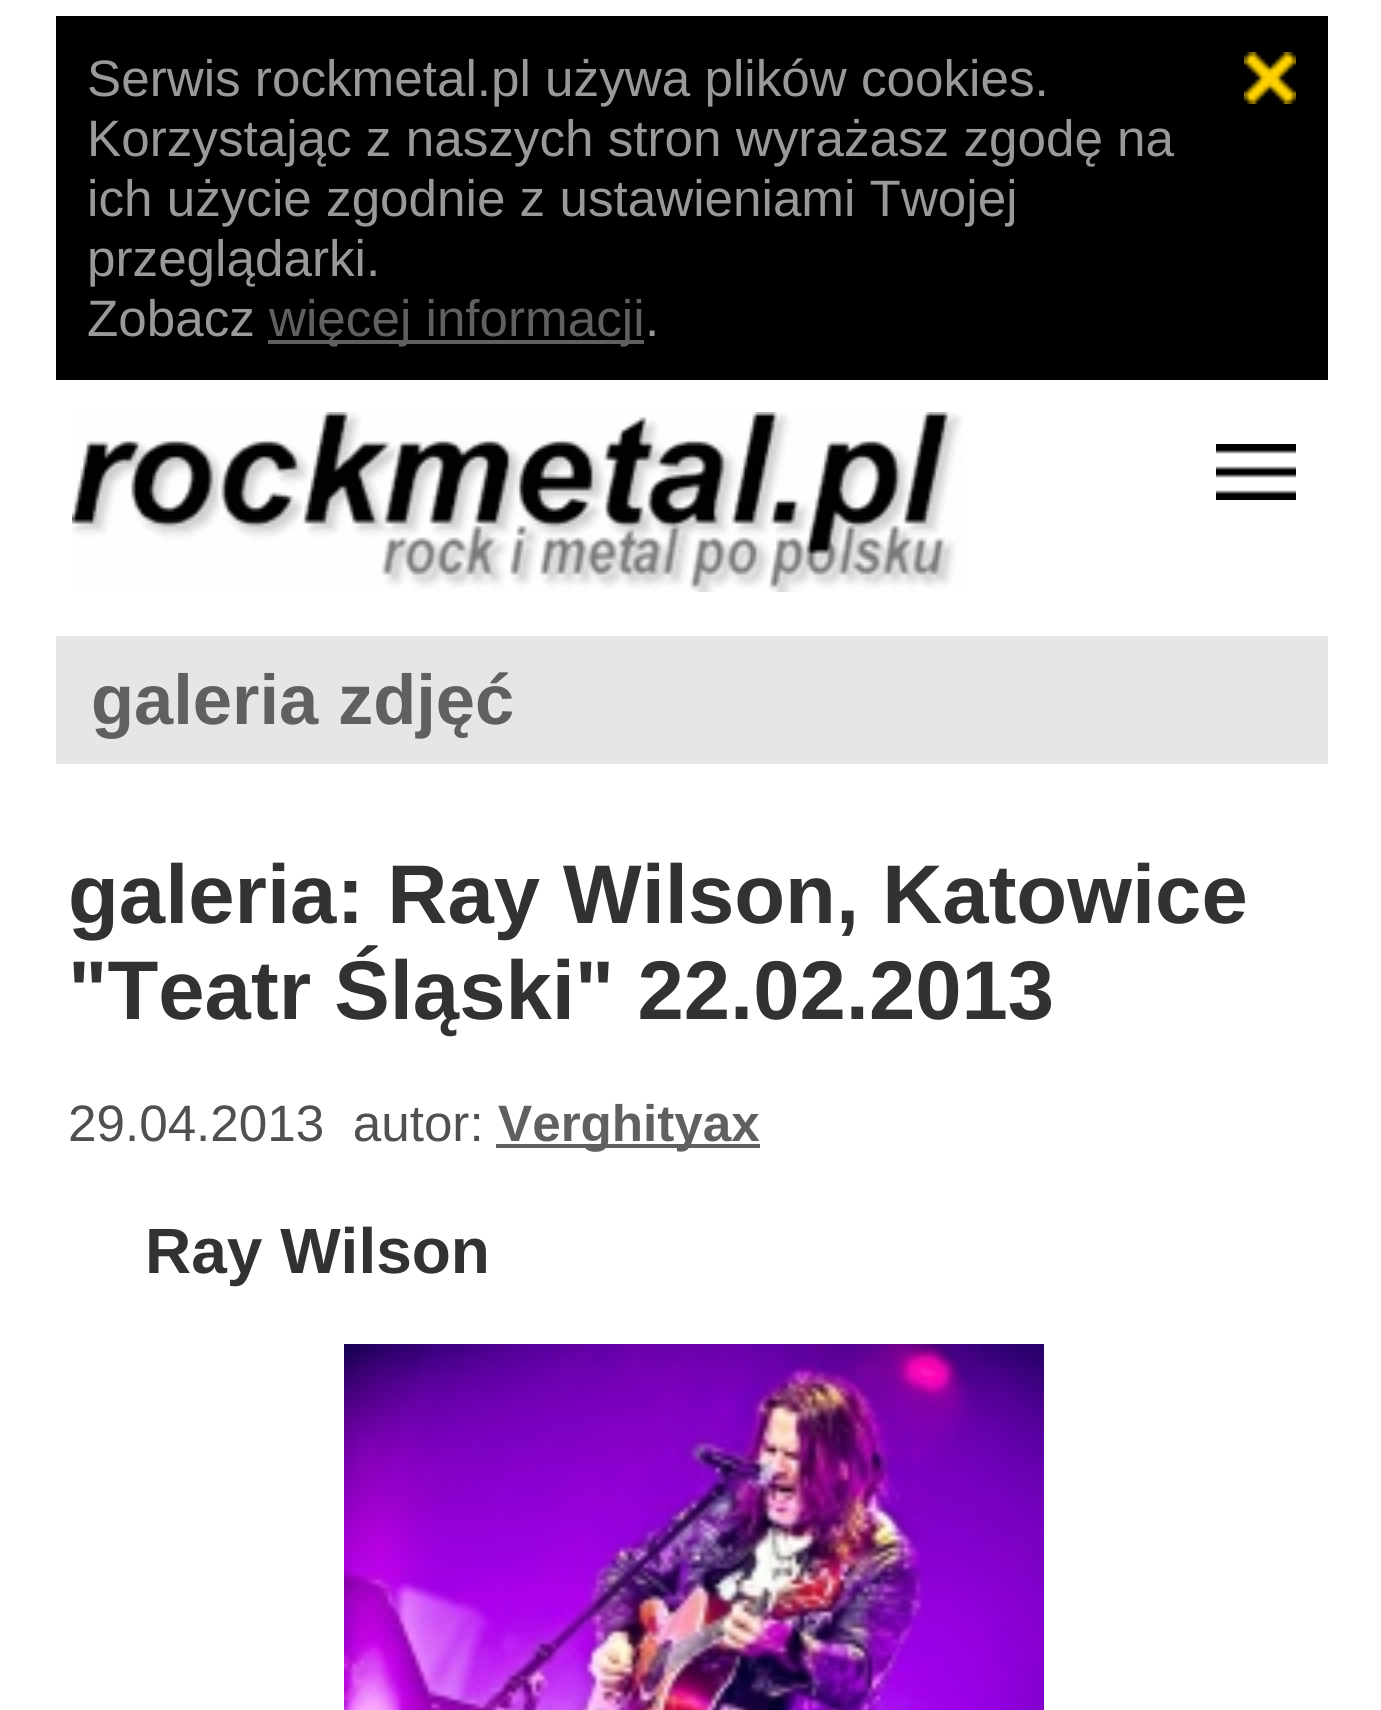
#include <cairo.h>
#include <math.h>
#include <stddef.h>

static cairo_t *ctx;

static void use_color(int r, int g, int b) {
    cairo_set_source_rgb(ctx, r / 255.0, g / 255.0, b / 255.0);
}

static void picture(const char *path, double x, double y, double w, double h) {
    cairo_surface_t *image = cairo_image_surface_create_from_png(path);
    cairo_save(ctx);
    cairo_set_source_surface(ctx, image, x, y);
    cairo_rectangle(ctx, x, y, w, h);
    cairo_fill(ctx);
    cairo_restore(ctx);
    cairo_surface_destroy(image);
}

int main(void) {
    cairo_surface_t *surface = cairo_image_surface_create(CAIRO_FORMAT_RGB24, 1381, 1710);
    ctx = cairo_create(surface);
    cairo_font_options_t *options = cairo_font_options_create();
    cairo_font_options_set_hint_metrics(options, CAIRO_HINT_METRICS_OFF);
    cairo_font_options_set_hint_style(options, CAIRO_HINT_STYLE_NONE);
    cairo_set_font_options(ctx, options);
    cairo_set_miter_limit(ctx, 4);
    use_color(255, 255, 255);
    cairo_paint(ctx);
    use_color(0, 0, 0);
    cairo_rectangle(ctx, 56, 16, 1272, 364);
    cairo_fill(ctx);
    cairo_select_font_face(ctx, "Liberation Sans", CAIRO_FONT_SLANT_NORMAL, CAIRO_FONT_WEIGHT_NORMAL);
    cairo_set_font_size(ctx, 51.2);
    use_color(153, 153, 153);
    cairo_move_to(ctx, 87, 96);
    cairo_show_text(ctx, "Serwis rockmetal.pl używa plików cookies.");
    cairo_move_to(ctx, 87, 156);
    cairo_show_text(ctx, "Korzystając z naszych stron wyrażasz zgodę na");
    cairo_move_to(ctx, 87, 216);
    cairo_show_text(ctx, "ich użycie zgodnie z ustawieniami Twojej");
    cairo_move_to(ctx, 87, 276);
    cairo_show_text(ctx, "przeglądarki.");
    cairo_move_to(ctx, 87, 336);
    cairo_show_text(ctx, "Zobacz");
    use_color(96, 96, 96);
    cairo_rectangle(ctx, 268, 340, 376, 4);
    cairo_fill(ctx);
    cairo_move_to(ctx, 269, 336);
    cairo_show_text(ctx, "więcej informacji");
    use_color(153, 153, 153);
    cairo_move_to(ctx, 645, 336);
    cairo_show_text(ctx, ".");
    picture("img1.png", 1244, 52, 52, 52);
    picture("img2.png", 72, 412, 891, 180);
    picture("img3.png", 1216, 444, 80, 56);
    use_color(230, 230, 230);
    cairo_rectangle(ctx, 56, 636, 1272, 128);
    cairo_fill(ctx);
    cairo_select_font_face(ctx, "Liberation Sans", CAIRO_FONT_SLANT_NORMAL, CAIRO_FONT_WEIGHT_BOLD);
    cairo_set_font_size(ctx, 70.5);
    use_color(96, 96, 96);
    cairo_move_to(ctx, 91, 724);
    cairo_show_text(ctx, "galeria zdjęć");
    cairo_set_font_size(ctx, 83.25);
    use_color(50, 50, 50);
    cairo_move_to(ctx, 68, 923);
    cairo_show_text(ctx, "galeria: Ray Wilson, Katowice");
    cairo_move_to(ctx, 68, 1019);
    cairo_show_text(ctx, "\"Teatr Śląski\" 22.02.2013");
    cairo_select_font_face(ctx, "Liberation Sans", CAIRO_FONT_SLANT_NORMAL, CAIRO_FONT_WEIGHT_NORMAL);
    cairo_set_font_size(ctx, 51.2);
    use_color(80, 80, 80);
    cairo_move_to(ctx, 68, 1141);
    cairo_show_text(ctx, "29.04.2013  autor:");
    use_color(96, 96, 96);
    cairo_rectangle(ctx, 496, 1144, 264, 4);
    cairo_fill(ctx);
    cairo_select_font_face(ctx, "Liberation Sans", CAIRO_FONT_SLANT_NORMAL, CAIRO_FONT_WEIGHT_BOLD);
    cairo_move_to(ctx, 498, 1141);
    cairo_show_text(ctx, "Verghityax");
    cairo_set_font_size(ctx, 64);
    use_color(50, 50, 50);
    cairo_move_to(ctx, 145, 1273);
    cairo_show_text(ctx, "Ray Wilson");
    picture("img4.png", 344, 1344, 700, 366);
    cairo_surface_write_to_png(surface, "result.png");
    cairo_font_options_destroy(options);
    cairo_destroy(ctx);
    cairo_surface_destroy(surface);
    return 0;
}
